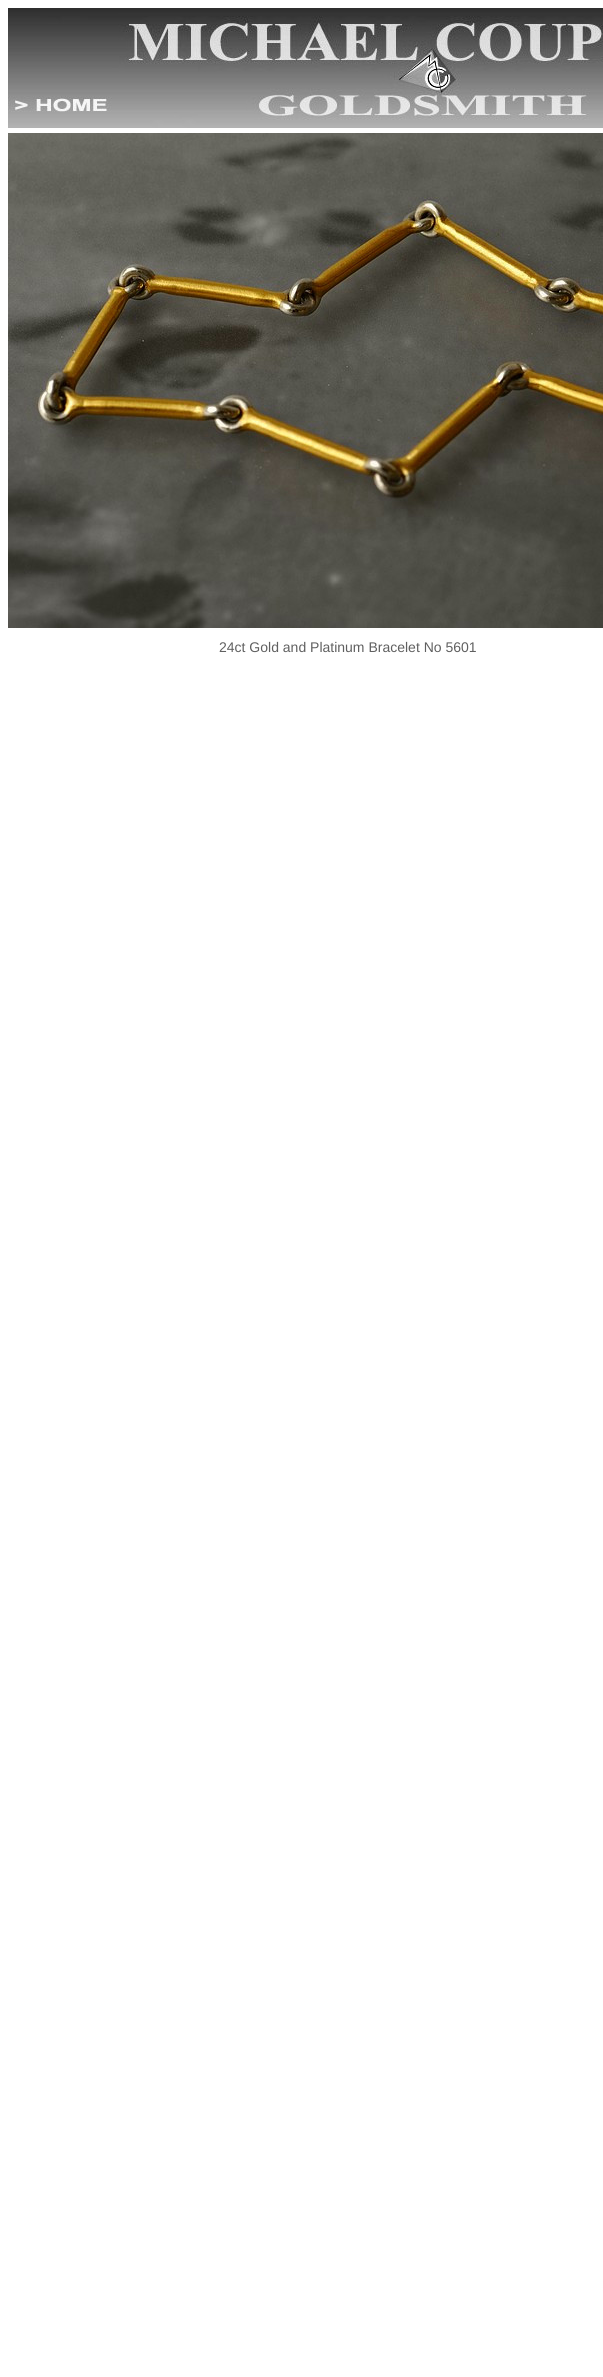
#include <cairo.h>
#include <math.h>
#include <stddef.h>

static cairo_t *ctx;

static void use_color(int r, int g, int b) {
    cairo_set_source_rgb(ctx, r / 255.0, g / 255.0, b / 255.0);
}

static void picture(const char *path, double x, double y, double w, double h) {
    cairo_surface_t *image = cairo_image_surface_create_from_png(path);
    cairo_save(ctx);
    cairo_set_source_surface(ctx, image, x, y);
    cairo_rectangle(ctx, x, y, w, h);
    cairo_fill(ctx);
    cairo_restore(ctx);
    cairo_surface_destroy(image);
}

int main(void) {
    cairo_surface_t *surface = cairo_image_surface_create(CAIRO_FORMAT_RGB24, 603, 2377);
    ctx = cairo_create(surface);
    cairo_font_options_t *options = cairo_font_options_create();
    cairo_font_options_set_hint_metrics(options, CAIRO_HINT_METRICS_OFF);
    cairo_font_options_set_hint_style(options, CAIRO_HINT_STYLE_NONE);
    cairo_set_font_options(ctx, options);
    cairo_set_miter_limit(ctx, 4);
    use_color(255, 255, 255);
    cairo_paint(ctx);
    picture("img1.png", 8, 8, 110, 120);
    picture("img2.png", 118, 8, 485, 120);
    picture("img3.png", 8, 133, 595, 495);
    cairo_select_font_face(ctx, "Liberation Sans", CAIRO_FONT_SLANT_NORMAL, CAIRO_FONT_WEIGHT_NORMAL);
    cairo_set_font_size(ctx, 14);
    use_color(96, 96, 96);
    cairo_move_to(ctx, 219, 652);
    cairo_show_text(ctx, "24ct Gold and Platinum Bracelet No 5601");
    cairo_surface_write_to_png(surface, "result.png");
    cairo_font_options_destroy(options);
    cairo_destroy(ctx);
    cairo_surface_destroy(surface);
    return 0;
}
